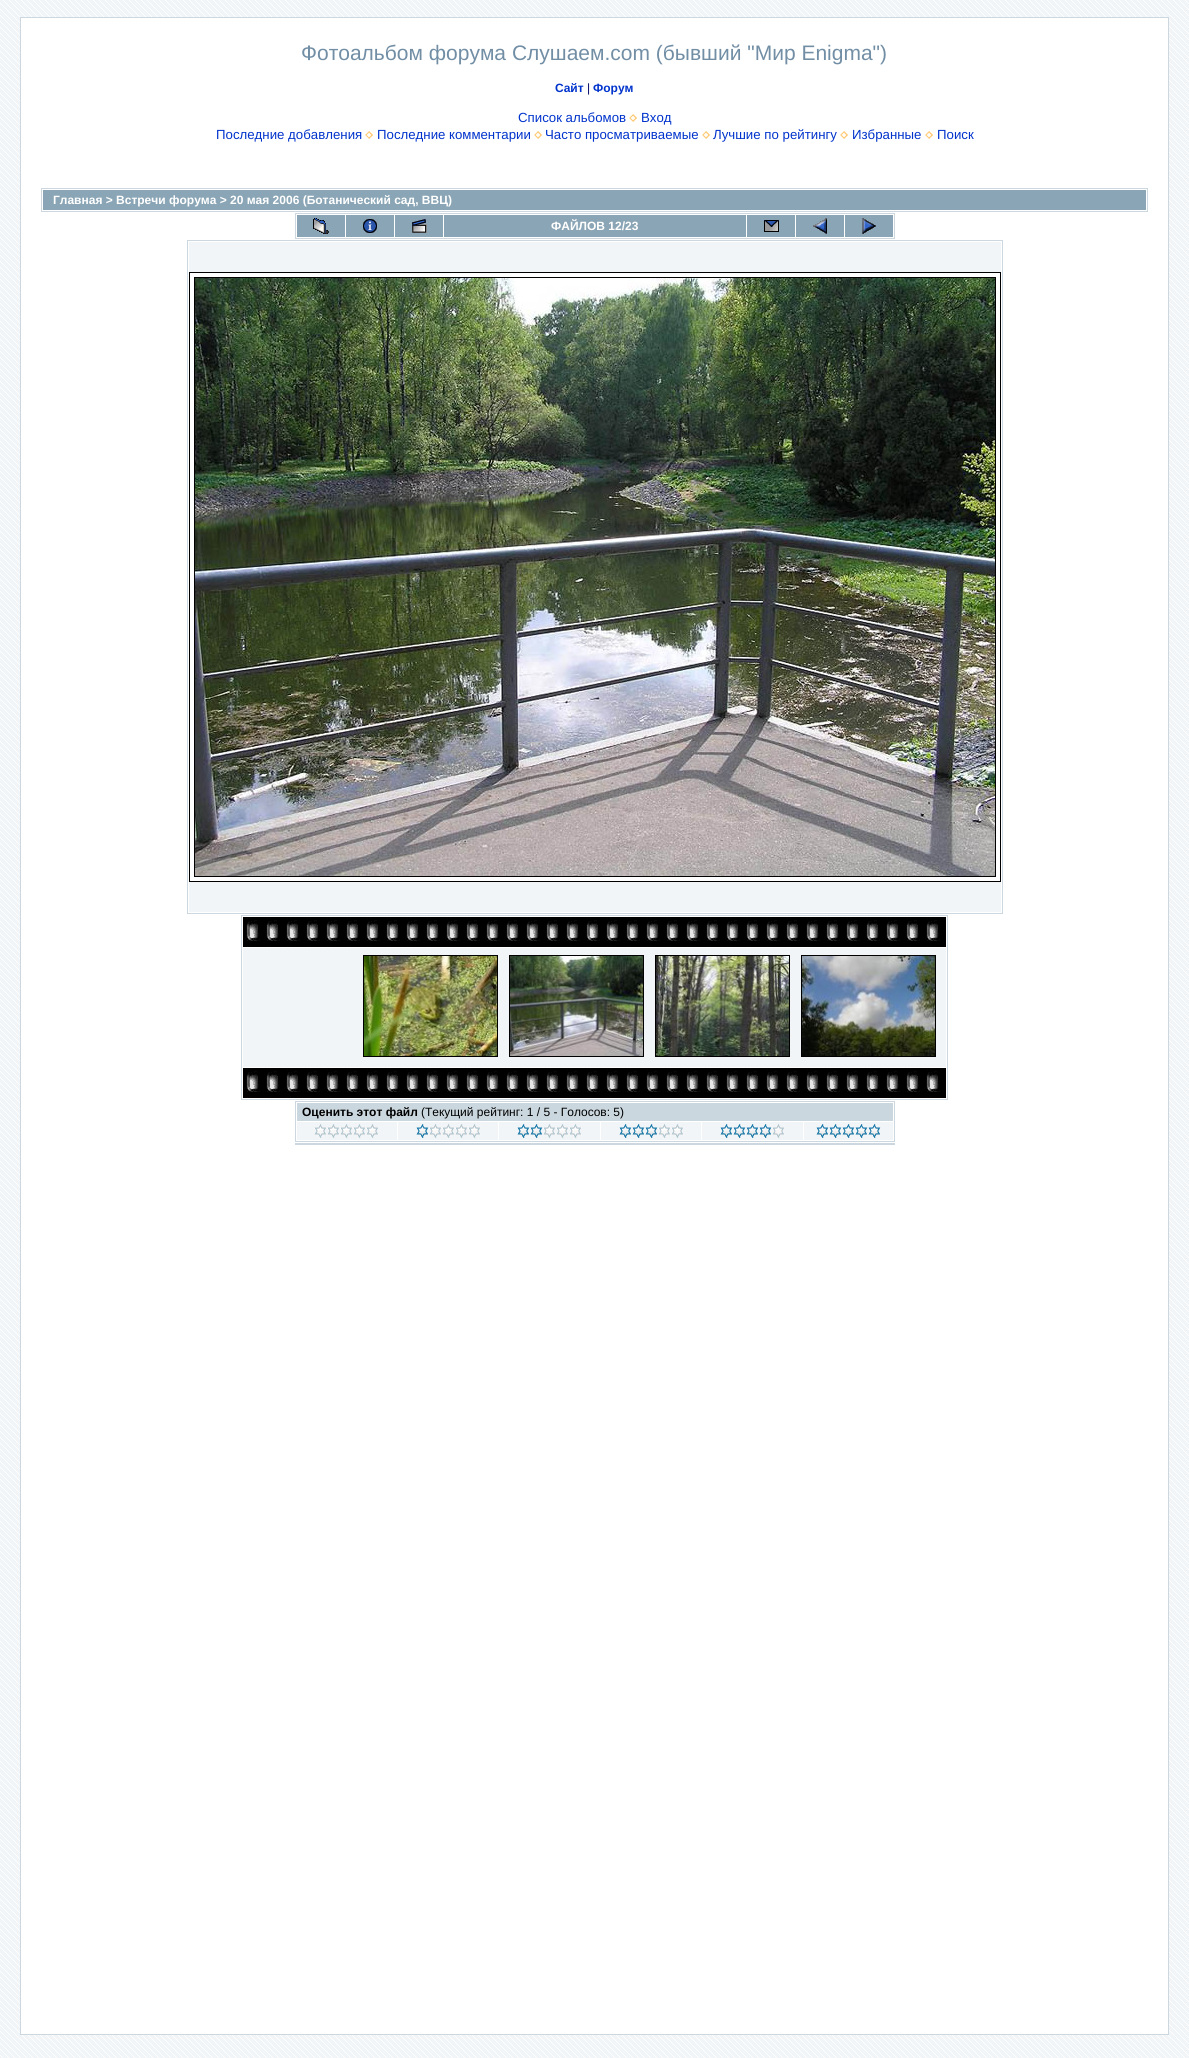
#include <cairo.h>
#include <math.h>
#include <stddef.h>

static cairo_t *ctx;

static void use_color(int r, int g, int b) {
    cairo_set_source_rgb(ctx, r / 255.0, g / 255.0, b / 255.0);
}

static void picture(const char *path, double x, double y, double w, double h) {
    cairo_surface_t *image = cairo_image_surface_create_from_png(path);
    cairo_save(ctx);
    cairo_set_source_surface(ctx, image, x, y);
    cairo_rectangle(ctx, x, y, w, h);
    cairo_fill(ctx);
    cairo_restore(ctx);
    cairo_surface_destroy(image);
}

int main(void) {
    cairo_surface_t *surface = cairo_image_surface_create(CAIRO_FORMAT_RGB24, 1189, 2058);
    ctx = cairo_create(surface);
    cairo_font_options_t *options = cairo_font_options_create();
    cairo_font_options_set_hint_metrics(options, CAIRO_HINT_METRICS_OFF);
    cairo_font_options_set_hint_style(options, CAIRO_HINT_STYLE_NONE);
    cairo_set_font_options(ctx, options);
    cairo_set_miter_limit(ctx, 4);
    use_color(242, 245, 247);
    cairo_paint(ctx);
    picture("img1.png", 0, 0, 1189, 2058);
    use_color(255, 255, 255);
    cairo_rectangle(ctx, 20.5, 17.5, 1148, 2017);
    cairo_fill_preserve(ctx);
    use_color(204, 215, 224);
    cairo_set_line_width(ctx, 1);
    cairo_stroke(ctx);
    cairo_select_font_face(ctx, "Liberation Sans", CAIRO_FONT_SLANT_NORMAL, CAIRO_FONT_WEIGHT_NORMAL);
    cairo_set_font_size(ctx, 21);
    use_color(113, 142, 165);
    cairo_move_to(ctx, 301, 60);
    cairo_show_text(ctx, "Фотоальбом форума Слушаем.com (бывший \"Мир Enigma\")");
    cairo_select_font_face(ctx, "Liberation Sans", CAIRO_FONT_SLANT_NORMAL, CAIRO_FONT_WEIGHT_BOLD);
    cairo_set_font_size(ctx, 12);
    use_color(0, 51, 204);
    cairo_move_to(ctx, 555, 92);
    cairo_show_text(ctx, "Сайт");
    cairo_select_font_face(ctx, "Liberation Sans", CAIRO_FONT_SLANT_NORMAL, CAIRO_FONT_WEIGHT_NORMAL);
    use_color(0, 6, 102);
    cairo_move_to(ctx, 587, 92);
    cairo_show_text(ctx, "|");
    cairo_select_font_face(ctx, "Liberation Sans", CAIRO_FONT_SLANT_NORMAL, CAIRO_FONT_WEIGHT_BOLD);
    use_color(0, 51, 204);
    cairo_move_to(ctx, 593, 92);
    cairo_show_text(ctx, "Форум");
    cairo_select_font_face(ctx, "Liberation Sans", CAIRO_FONT_SLANT_NORMAL, CAIRO_FONT_WEIGHT_NORMAL);
    cairo_set_font_size(ctx, 13.25);
    cairo_move_to(ctx, 518, 122);
    cairo_show_text(ctx, "Список альбомов");
    picture("img2.png", 629, 114, 8, 8);
    cairo_move_to(ctx, 641, 122);
    cairo_show_text(ctx, "Вход");
    cairo_move_to(ctx, 216, 139);
    cairo_show_text(ctx, "Последние добавления");
    picture("img2.png", 365, 131, 8, 8);
    cairo_move_to(ctx, 377, 139);
    cairo_show_text(ctx, "Последние комментарии");
    picture("img2.png", 534, 131, 8, 8);
    cairo_move_to(ctx, 545, 139);
    cairo_show_text(ctx, "Часто просматриваемые");
    picture("img2.png", 702, 131, 8, 8);
    cairo_move_to(ctx, 713, 139);
    cairo_show_text(ctx, "Лучшие по рейтингу");
    picture("img2.png", 840, 131, 8, 8);
    cairo_move_to(ctx, 852, 139);
    cairo_show_text(ctx, "Избранные");
    picture("img2.png", 925, 131, 8, 8);
    cairo_move_to(ctx, 937, 139);
    cairo_show_text(ctx, "Поиск");
    cairo_rectangle(ctx, 41.5, 188.5, 1106, 23);
    use_color(204, 215, 224);
    cairo_stroke(ctx);
    use_color(138, 165, 181);
    cairo_rectangle(ctx, 43, 190, 1103, 20);
    cairo_fill(ctx);
    cairo_select_font_face(ctx, "Liberation Sans", CAIRO_FONT_SLANT_NORMAL, CAIRO_FONT_WEIGHT_BOLD);
    cairo_set_font_size(ctx, 12);
    use_color(255, 255, 255);
    cairo_move_to(ctx, 53, 204);
    cairo_show_text(ctx, "Главная > Встречи форума > 20 мая 2006 (Ботанический сад, ВВЦ)");
    cairo_rectangle(ctx, 295.5, 213.5, 599, 25);
    use_color(204, 215, 224);
    cairo_stroke(ctx);
    use_color(138, 165, 181);
    cairo_rectangle(ctx, 297, 215, 48, 22);
    cairo_fill(ctx);
    picture("img3.png", 313, 218, 16, 16);
    cairo_rectangle(ctx, 346, 215, 48, 22);
    cairo_fill(ctx);
    picture("img4.png", 363, 219, 14, 14);
    cairo_rectangle(ctx, 395, 215, 48, 22);
    cairo_fill(ctx);
    picture("img5.png", 412, 219, 15, 14);
    cairo_rectangle(ctx, 444, 215, 302, 22);
    cairo_fill(ctx);
    use_color(255, 255, 255);
    cairo_move_to(ctx, 551, 230);
    cairo_show_text(ctx, "ФАЙЛОВ 12/23");
    use_color(138, 165, 181);
    cairo_rectangle(ctx, 747, 215, 48, 22);
    cairo_fill(ctx);
    picture("img6.png", 764, 220, 15, 12);
    cairo_rectangle(ctx, 796, 215, 48, 22);
    cairo_fill(ctx);
    picture("img7.png", 813, 218, 14, 16);
    cairo_rectangle(ctx, 845, 215, 48, 22);
    cairo_fill(ctx);
    picture("img8.png", 862, 218, 14, 16);
    cairo_rectangle(ctx, 187.5, 240.5, 815, 673);
    use_color(204, 215, 224);
    cairo_stroke(ctx);
    use_color(242, 245, 247);
    cairo_rectangle(ctx, 189, 242, 812, 670);
    cairo_fill(ctx);
    use_color(255, 255, 255);
    cairo_rectangle(ctx, 189.5, 272.5, 811, 609);
    cairo_fill_preserve(ctx);
    use_color(0, 0, 0);
    cairo_stroke(ctx);
    cairo_rectangle(ctx, 194.5, 277.5, 801, 599);
    cairo_stroke(ctx);
    picture("img9.png", 195, 278, 800, 598);
    cairo_rectangle(ctx, 241.5, 915.5, 706, 184);
    use_color(204, 215, 224);
    cairo_stroke(ctx);
    picture("img10.png", 243, 917, 703, 30);
    use_color(242, 245, 247);
    cairo_rectangle(ctx, 243, 948, 703, 119);
    cairo_fill(ctx);
    cairo_rectangle(ctx, 363.5, 955.5, 134, 101);
    use_color(0, 0, 0);
    cairo_stroke(ctx);
    cairo_rectangle(ctx, 509.5, 955.5, 134, 101);
    cairo_stroke(ctx);
    cairo_rectangle(ctx, 655.5, 955.5, 134, 101);
    cairo_stroke(ctx);
    cairo_rectangle(ctx, 801.5, 955.5, 134, 101);
    cairo_stroke(ctx);
    picture("img11.png", 364, 956, 133, 100);
    picture("img12.png", 510, 956, 133, 100);
    picture("img13.png", 656, 956, 133, 100);
    picture("img14.png", 802, 956, 133, 100);
    picture("img10.png", 243, 1068, 703, 30);
    cairo_rectangle(ctx, 295.5, 1101.5, 599, 40);
    use_color(204, 215, 224);
    cairo_stroke(ctx);
    use_color(203, 215, 222);
    cairo_rectangle(ctx, 297, 1103, 596, 18);
    cairo_fill(ctx);
    use_color(0, 0, 0);
    cairo_move_to(ctx, 302, 1116);
    cairo_show_text(ctx, "Оценить этот файл");
    cairo_select_font_face(ctx, "Liberation Sans", CAIRO_FONT_SLANT_NORMAL, CAIRO_FONT_WEIGHT_NORMAL);
    cairo_move_to(ctx, 421, 1116);
    cairo_show_text(ctx, "(Текущий рейтинг: 1 / 5 - Голосов: 5)");
    use_color(242, 245, 247);
    cairo_rectangle(ctx, 297, 1122, 100, 18);
    cairo_fill(ctx);
    picture("img15.png", 314, 1124, 65, 14);
    cairo_rectangle(ctx, 398, 1122, 100, 18);
    cairo_fill(ctx);
    picture("img16.png", 416, 1124, 65, 14);
    cairo_rectangle(ctx, 499, 1122, 101, 18);
    cairo_fill(ctx);
    picture("img17.png", 517, 1124, 65, 14);
    cairo_rectangle(ctx, 601, 1122, 100, 18);
    cairo_fill(ctx);
    picture("img18.png", 619, 1124, 65, 14);
    cairo_rectangle(ctx, 702, 1122, 101, 18);
    cairo_fill(ctx);
    picture("img19.png", 720, 1124, 65, 14);
    cairo_rectangle(ctx, 804, 1122, 89, 18);
    cairo_fill(ctx);
    picture("img20.png", 816, 1124, 65, 14);
    use_color(204, 215, 224);
    cairo_rectangle(ctx, 295, 1143, 600, 2);
    cairo_fill(ctx);
    cairo_surface_write_to_png(surface, "result.png");
    cairo_font_options_destroy(options);
    cairo_destroy(ctx);
    cairo_surface_destroy(surface);
    return 0;
}
